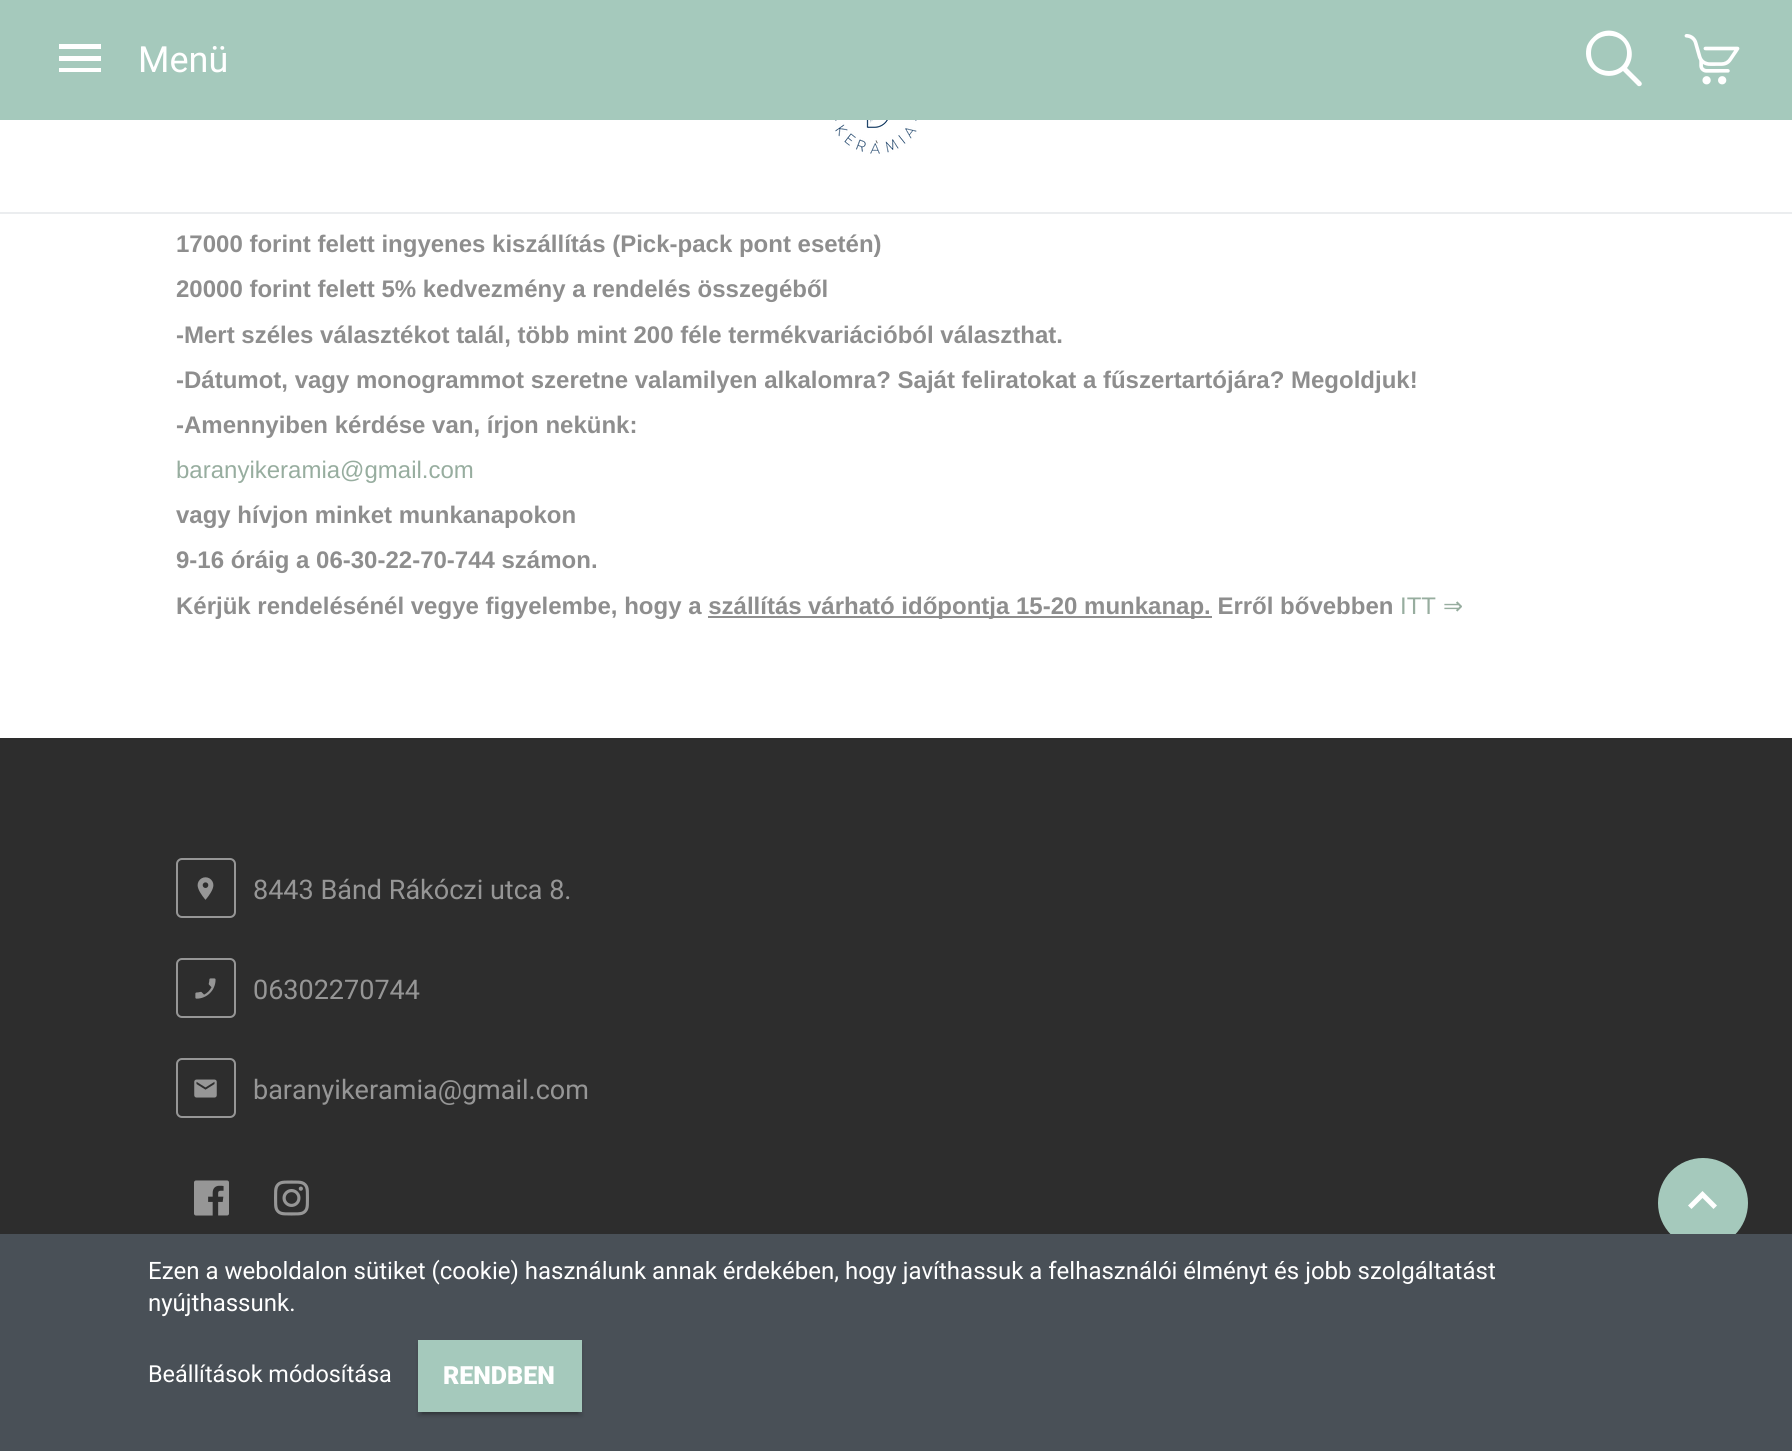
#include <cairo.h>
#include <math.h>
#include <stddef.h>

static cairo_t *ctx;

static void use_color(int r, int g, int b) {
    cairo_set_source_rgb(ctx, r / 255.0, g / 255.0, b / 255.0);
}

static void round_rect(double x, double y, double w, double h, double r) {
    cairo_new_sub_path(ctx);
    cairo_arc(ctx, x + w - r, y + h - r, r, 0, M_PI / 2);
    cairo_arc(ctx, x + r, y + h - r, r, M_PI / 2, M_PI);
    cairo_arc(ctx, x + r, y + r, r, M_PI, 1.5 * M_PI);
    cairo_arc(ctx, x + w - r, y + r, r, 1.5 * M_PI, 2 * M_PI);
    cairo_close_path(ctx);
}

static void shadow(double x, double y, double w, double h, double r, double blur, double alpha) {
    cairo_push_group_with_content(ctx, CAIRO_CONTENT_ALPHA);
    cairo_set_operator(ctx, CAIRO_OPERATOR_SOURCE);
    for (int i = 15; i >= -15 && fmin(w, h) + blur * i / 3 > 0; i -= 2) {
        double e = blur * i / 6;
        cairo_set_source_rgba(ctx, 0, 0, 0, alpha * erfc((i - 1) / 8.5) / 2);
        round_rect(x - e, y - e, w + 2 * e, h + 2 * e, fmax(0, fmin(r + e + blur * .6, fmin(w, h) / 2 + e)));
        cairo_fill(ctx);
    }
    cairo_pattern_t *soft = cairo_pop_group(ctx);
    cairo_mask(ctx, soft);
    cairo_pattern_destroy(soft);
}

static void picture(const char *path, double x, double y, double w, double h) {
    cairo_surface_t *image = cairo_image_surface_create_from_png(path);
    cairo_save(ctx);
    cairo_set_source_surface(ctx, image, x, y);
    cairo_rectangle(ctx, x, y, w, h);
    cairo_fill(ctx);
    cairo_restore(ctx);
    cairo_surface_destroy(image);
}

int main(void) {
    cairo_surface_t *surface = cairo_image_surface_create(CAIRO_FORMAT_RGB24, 1792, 1451);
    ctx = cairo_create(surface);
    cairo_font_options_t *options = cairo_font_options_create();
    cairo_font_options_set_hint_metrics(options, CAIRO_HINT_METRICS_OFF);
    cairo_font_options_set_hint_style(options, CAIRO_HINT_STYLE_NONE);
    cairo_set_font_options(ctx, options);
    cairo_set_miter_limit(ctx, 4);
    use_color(255, 255, 255);
    cairo_paint(ctx);
    use_color(165, 201, 188);
    cairo_rectangle(ctx, 0, 0, 1792, 120);
    cairo_fill(ctx);
    use_color(255, 255, 255);
    cairo_new_path(ctx);
    cairo_move_to(ctx, 59, 72);
    cairo_line_to(ctx, 101, 72);
    cairo_line_to(ctx, 101, 68);
    cairo_line_to(ctx, 59, 68);
    cairo_close_path(ctx);
    cairo_move_to(ctx, 59, 61);
    cairo_line_to(ctx, 101, 61);
    cairo_line_to(ctx, 101, 56);
    cairo_line_to(ctx, 59, 56);
    cairo_close_path(ctx);
    cairo_move_to(ctx, 59, 44);
    cairo_line_to(ctx, 59, 49);
    cairo_line_to(ctx, 101, 49);
    cairo_line_to(ctx, 101, 44);
    cairo_close_path(ctx);
    cairo_fill(ctx);
    cairo_select_font_face(ctx, "Roboto", CAIRO_FONT_SLANT_NORMAL, CAIRO_FONT_WEIGHT_NORMAL);
    cairo_set_font_size(ctx, 36);
    cairo_move_to(ctx, 138, 72);
    cairo_show_text(ctx, "Menü");
    cairo_new_path(ctx);
    cairo_move_to(ctx, 1641, 82);
    cairo_line_to(ctx, 1627, 68);
    cairo_curve_to(ctx, 1642, 48, 1619, 21, 1597, 34);
    cairo_curve_to(ctx, 1593, 37, 1589, 41, 1587, 46);
    cairo_curve_to(ctx, 1585, 53, 1586, 60, 1590, 66);
    cairo_curve_to(ctx, 1598, 77, 1613, 79, 1623, 71);
    cairo_line_to(ctx, 1638, 86);
    cairo_curve_to(ctx, 1641, 87, 1643, 84, 1641, 82);
    cairo_close_path(ctx);
    cairo_move_to(ctx, 1591, 53);
    cairo_curve_to(ctx, 1591, 30, 1627, 30, 1627, 53);
    cairo_curve_to(ctx, 1627, 77, 1591, 77, 1591, 53);
    cairo_close_path(ctx);
    cairo_fill(ctx);
    picture("img1.png", 1684, 34, 56, 51);
    use_color(235, 237, 239);
    cairo_rectangle(ctx, 0, 212, 1792, 2);
    cairo_fill(ctx);
    picture("img2.png", 835, 120, 82, 34);
    cairo_select_font_face(ctx, "Liberation Sans", CAIRO_FONT_SLANT_NORMAL, CAIRO_FONT_WEIGHT_BOLD);
    cairo_set_font_size(ctx, 24);
    use_color(142, 142, 142);
    cairo_move_to(ctx, 176, 252);
    cairo_show_text(ctx, "17000 forint felett ingyenes kiszállítás (Pick-pack pont esetén)");
    cairo_move_to(ctx, 176, 297);
    cairo_show_text(ctx, "20000 forint felett 5% kedvezmény a rendelés összegéből");
    cairo_move_to(ctx, 176, 343);
    cairo_show_text(ctx, "-Mert széles választékot talál, több mint 200 féle termékvariációból választhat.");
    cairo_move_to(ctx, 176, 388);
    cairo_show_text(ctx, "-Dátumot, vagy monogrammot szeretne valamilyen alkalomra? Saját feliratokat a fűszertartójára? Megoldjuk!");
    cairo_move_to(ctx, 176, 433);
    cairo_show_text(ctx, "-Amennyiben kérdése van, írjon nekünk:");
    cairo_select_font_face(ctx, "Liberation Sans", CAIRO_FONT_SLANT_NORMAL, CAIRO_FONT_WEIGHT_NORMAL);
    use_color(151, 173, 159);
    cairo_move_to(ctx, 176, 478);
    cairo_show_text(ctx, "baranyikeramia@gmail.com");
    cairo_select_font_face(ctx, "Liberation Sans", CAIRO_FONT_SLANT_NORMAL, CAIRO_FONT_WEIGHT_BOLD);
    use_color(142, 142, 142);
    cairo_move_to(ctx, 176, 523);
    cairo_show_text(ctx, "vagy hívjon minket munkanapokon");
    cairo_move_to(ctx, 176, 568);
    cairo_show_text(ctx, "9-16 óráig a 06-30-22-70-744 számon.");
    cairo_move_to(ctx, 176, 614);
    cairo_show_text(ctx, "Kérjük rendelésénél vegye figyelembe, hogy a szállítás");
    cairo_rectangle(ctx, 708, 616, 504, 2);
    cairo_fill(ctx);
    cairo_move_to(ctx, 808, 614);
    cairo_show_text(ctx, "várható időpontja 15-20 munkanap. Erről bővebben");
    cairo_select_font_face(ctx, "Liberation Sans", CAIRO_FONT_SLANT_NORMAL, CAIRO_FONT_WEIGHT_NORMAL);
    use_color(151, 173, 159);
    cairo_move_to(ctx, 1400, 614);
    cairo_show_text(ctx, "ITT");
    cairo_select_font_face(ctx, "DejaVu Sans", CAIRO_FONT_SLANT_NORMAL, CAIRO_FONT_WEIGHT_NORMAL);
    cairo_move_to(ctx, 1443, 614);
    cairo_show_text(ctx, "⇒");
    use_color(45, 45, 45);
    cairo_rectangle(ctx, 0, 738, 1792, 496);
    cairo_fill(ctx);
    round_rect(177, 859, 58, 58, 5);
    use_color(150, 150, 150);
    cairo_stroke(ctx);
    picture("img3.png", 197, 877, 17, 23);
    cairo_select_font_face(ctx, "Roboto", CAIRO_FONT_SLANT_NORMAL, CAIRO_FONT_WEIGHT_NORMAL);
    cairo_set_font_size(ctx, 27);
    cairo_move_to(ctx, 253, 899);
    cairo_show_text(ctx, "8443 Bánd Rákóczi utca 8.");
    round_rect(177, 959, 58, 58, 5);
    cairo_stroke(ctx);
    picture("img4.png", 195, 978, 21, 21);
    cairo_move_to(ctx, 253, 999);
    cairo_show_text(ctx, "06302270744");
    round_rect(177, 1059, 58, 58, 5);
    cairo_stroke(ctx);
    picture("img5.png", 194, 1079, 23, 19);
    cairo_move_to(ctx, 253, 1099);
    cairo_show_text(ctx, "baranyikeramia@gmail.com");
    picture("img6.png", 194, 1180, 35, 36);
    picture("img7.png", 274, 1180, 35, 36);
    use_color(165, 201, 188);
    cairo_arc(ctx, 1703, 1203, 45, 0, 2 * M_PI);
    cairo_fill(ctx);
    use_color(255, 255, 255);
    cairo_new_path(ctx);
    cairo_move_to(ctx, 1688, 1205.5);
    cairo_line_to(ctx, 1691.5, 1209);
    cairo_line_to(ctx, 1702.5, 1198);
    cairo_line_to(ctx, 1713.5, 1209);
    cairo_line_to(ctx, 1717, 1205.5);
    cairo_line_to(ctx, 1702.5, 1191);
    cairo_close_path(ctx);
    cairo_fill(ctx);
    use_color(73, 80, 87);
    cairo_rectangle(ctx, 0, 1234, 1792, 217);
    cairo_fill(ctx);
    cairo_set_font_size(ctx, 24);
    use_color(255, 255, 255);
    cairo_move_to(ctx, 148, 1279);
    cairo_show_text(ctx, "Ezen a weboldalon sütiket (cookie) használunk annak érdekében, hogy javíthassuk a felhasználói élményt és jobb szolgáltatást");
    cairo_move_to(ctx, 148, 1311);
    cairo_show_text(ctx, "nyújthassunk.");
    cairo_set_font_size(ctx, 23.4);
    cairo_move_to(ctx, 148, 1382);
    cairo_show_text(ctx, "Beállítások módosítása");
    use_color(0, 0, 0);
    shadow(422, 1350, 156, 64, 0, 1, 0.2);
    shadow(418, 1344, 164, 72, 0, 2, 0.14);
    use_color(165, 201, 188);
    cairo_rectangle(ctx, 418, 1340, 164, 72);
    cairo_fill(ctx);
    cairo_select_font_face(ctx, "Roboto Black", CAIRO_FONT_SLANT_NORMAL, CAIRO_FONT_WEIGHT_NORMAL);
    cairo_set_font_size(ctx, 25);
    use_color(255, 255, 255);
    cairo_move_to(ctx, 443, 1384);
    cairo_show_text(ctx, "RENDBEN");
    cairo_surface_write_to_png(surface, "result.png");
    cairo_font_options_destroy(options);
    cairo_destroy(ctx);
    cairo_surface_destroy(surface);
    return 0;
}
